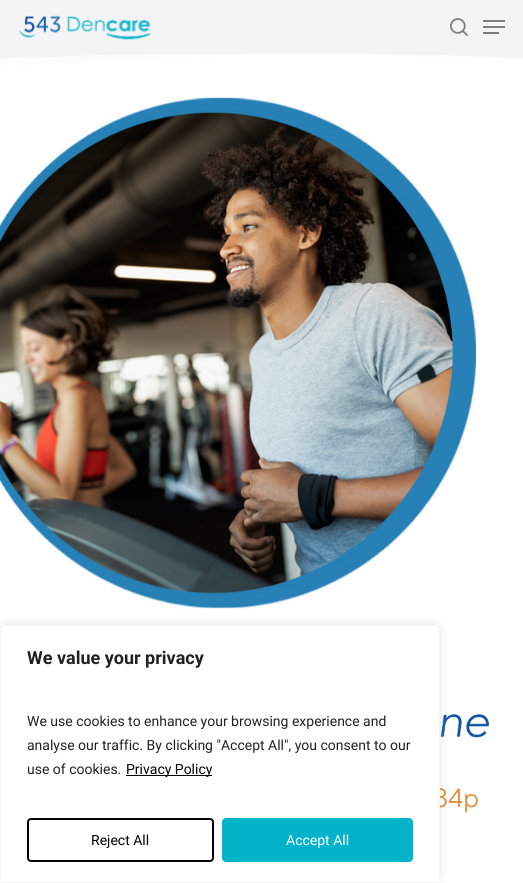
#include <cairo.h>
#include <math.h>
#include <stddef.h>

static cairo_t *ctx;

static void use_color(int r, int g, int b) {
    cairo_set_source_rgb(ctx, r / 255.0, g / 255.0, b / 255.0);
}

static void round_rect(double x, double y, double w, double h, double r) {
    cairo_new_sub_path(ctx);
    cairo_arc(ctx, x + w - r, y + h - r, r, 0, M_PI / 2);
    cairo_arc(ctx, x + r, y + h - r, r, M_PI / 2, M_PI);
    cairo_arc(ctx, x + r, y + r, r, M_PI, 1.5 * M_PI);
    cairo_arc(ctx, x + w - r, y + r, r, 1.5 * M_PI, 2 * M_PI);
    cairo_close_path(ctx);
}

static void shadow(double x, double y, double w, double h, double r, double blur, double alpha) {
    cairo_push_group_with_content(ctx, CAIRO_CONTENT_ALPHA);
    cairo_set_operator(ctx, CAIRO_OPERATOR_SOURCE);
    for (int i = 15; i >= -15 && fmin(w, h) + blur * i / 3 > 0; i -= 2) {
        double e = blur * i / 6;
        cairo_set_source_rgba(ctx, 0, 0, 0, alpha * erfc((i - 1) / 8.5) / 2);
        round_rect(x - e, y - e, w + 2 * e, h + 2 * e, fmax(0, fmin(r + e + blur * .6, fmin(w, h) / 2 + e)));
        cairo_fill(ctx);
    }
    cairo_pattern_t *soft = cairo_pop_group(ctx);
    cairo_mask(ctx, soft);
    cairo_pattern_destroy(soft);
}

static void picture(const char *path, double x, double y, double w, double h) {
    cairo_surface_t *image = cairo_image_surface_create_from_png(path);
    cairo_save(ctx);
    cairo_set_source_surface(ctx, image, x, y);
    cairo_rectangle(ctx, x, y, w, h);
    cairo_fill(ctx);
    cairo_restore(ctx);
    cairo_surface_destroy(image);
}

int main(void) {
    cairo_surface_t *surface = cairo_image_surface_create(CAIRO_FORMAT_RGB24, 523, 883);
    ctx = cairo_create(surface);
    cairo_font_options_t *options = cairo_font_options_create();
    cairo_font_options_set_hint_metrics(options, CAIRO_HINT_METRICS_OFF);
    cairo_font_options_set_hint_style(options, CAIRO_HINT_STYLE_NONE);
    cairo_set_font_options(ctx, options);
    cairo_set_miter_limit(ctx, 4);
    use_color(255, 255, 255);
    cairo_paint(ctx);
    picture("img3.png", 0, 97, 481, 513);
    picture("img4.png", 440, 714, 49, 24);
    use_color(172, 171, 171);
    shadow(0, 624, 440, 258, 6, 5, 0.3);
    cairo_select_font_face(ctx, "Didact Gothic", CAIRO_FONT_SLANT_NORMAL, CAIRO_FONT_WEIGHT_NORMAL);
    cairo_set_font_size(ctx, 27);
    use_color(228, 140, 51);
    cairo_move_to(ctx, 433, 807);
    cairo_show_text(ctx, "84p");
    use_color(255, 255, 255);
    round_rect(0.5, 625.5, 439, 257, 5.5);
    cairo_fill_preserve(ctx);
    use_color(244, 244, 244);
    cairo_set_line_width(ctx, 1);
    cairo_stroke(ctx);
    cairo_select_font_face(ctx, "Roboto", CAIRO_FONT_SLANT_NORMAL, CAIRO_FONT_WEIGHT_BOLD);
    cairo_set_font_size(ctx, 18);
    use_color(33, 33, 33);
    cairo_move_to(ctx, 27, 664);
    cairo_show_text(ctx, "We value your privacy");
    cairo_select_font_face(ctx, "Roboto", CAIRO_FONT_SLANT_NORMAL, CAIRO_FONT_WEIGHT_NORMAL);
    cairo_set_font_size(ctx, 14);
    cairo_move_to(ctx, 27, 726);
    cairo_show_text(ctx, "We use cookies to enhance your browsing experience and");
    cairo_move_to(ctx, 27, 750);
    cairo_show_text(ctx, "analyse our traffic. By clicking \"Accept All\", you consent to our");
    cairo_move_to(ctx, 27, 774);
    cairo_show_text(ctx, "use of cookies.");
    use_color(0, 0, 0);
    cairo_rectangle(ctx, 126, 775, 86, 1);
    cairo_fill(ctx);
    cairo_move_to(ctx, 126, 774);
    cairo_show_text(ctx, "Privacy Policy");
    round_rect(28, 819, 185, 42, 3);
    cairo_set_line_width(ctx, 2);
    cairo_stroke(ctx);
    cairo_move_to(ctx, 91, 845);
    cairo_show_text(ctx, "Reject All");
    use_color(2, 179, 202);
    round_rect(223, 819, 189, 42, 3);
    cairo_fill_preserve(ctx);
    cairo_stroke(ctx);
    use_color(255, 255, 255);
    cairo_move_to(ctx, 286, 845);
    cairo_show_text(ctx, "Accept All");
    use_color(244, 244, 244);
    cairo_rectangle(ctx, 0, 0, 523, 54);
    cairo_fill(ctx);
    picture("img1.png", 19, 15, 132, 25);
    picture("img2.png", 450, 18, 18, 18);
    use_color(124, 124, 124);
    cairo_rectangle(ctx, 483, 20, 22, 2);
    cairo_fill(ctx);
    cairo_rectangle(ctx, 483, 32, 16, 2);
    cairo_fill(ctx);
    cairo_rectangle(ctx, 483, 26, 22, 2);
    cairo_fill(ctx);
    cairo_set_source_rgba(ctx, 0.957, 0.957, 0.957, 0.3);
    cairo_new_path(ctx);
    cairo_move_to(ctx, 523, 61);
    cairo_curve_to(ctx, 523, 61, 381, 53, 262, 55);
    cairo_curve_to(ctx, 179, 57, 89, 63, -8, 66);
    cairo_line_to(ctx, -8, 52);
    cairo_line_to(ctx, 523, 52);
    cairo_close_path(ctx);
    cairo_fill(ctx);
    use_color(244, 244, 244);
    cairo_new_path(ctx);
    cairo_move_to(ctx, 523, 58);
    cairo_curve_to(ctx, 523, 58, 425, 53, 257, 53);
    cairo_curve_to(ctx, 106, 53, -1, 59, -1, 59);
    cairo_line_to(ctx, -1, 52);
    cairo_line_to(ctx, 523, 52);
    cairo_close_path(ctx);
    cairo_fill(ctx);
    cairo_surface_write_to_png(surface, "result.png");
    cairo_font_options_destroy(options);
    cairo_destroy(ctx);
    cairo_surface_destroy(surface);
    return 0;
}
